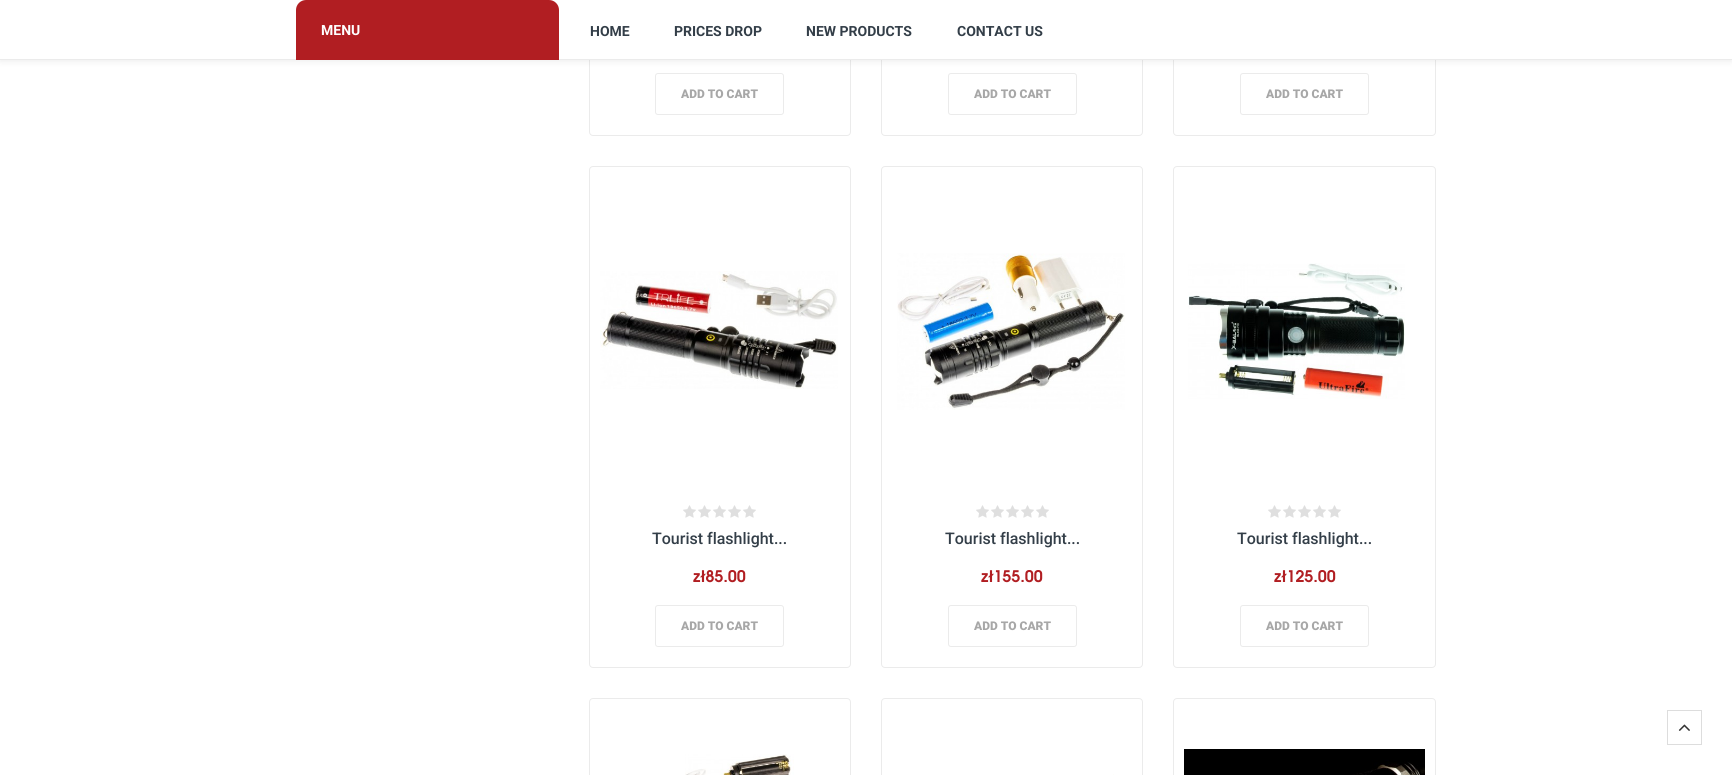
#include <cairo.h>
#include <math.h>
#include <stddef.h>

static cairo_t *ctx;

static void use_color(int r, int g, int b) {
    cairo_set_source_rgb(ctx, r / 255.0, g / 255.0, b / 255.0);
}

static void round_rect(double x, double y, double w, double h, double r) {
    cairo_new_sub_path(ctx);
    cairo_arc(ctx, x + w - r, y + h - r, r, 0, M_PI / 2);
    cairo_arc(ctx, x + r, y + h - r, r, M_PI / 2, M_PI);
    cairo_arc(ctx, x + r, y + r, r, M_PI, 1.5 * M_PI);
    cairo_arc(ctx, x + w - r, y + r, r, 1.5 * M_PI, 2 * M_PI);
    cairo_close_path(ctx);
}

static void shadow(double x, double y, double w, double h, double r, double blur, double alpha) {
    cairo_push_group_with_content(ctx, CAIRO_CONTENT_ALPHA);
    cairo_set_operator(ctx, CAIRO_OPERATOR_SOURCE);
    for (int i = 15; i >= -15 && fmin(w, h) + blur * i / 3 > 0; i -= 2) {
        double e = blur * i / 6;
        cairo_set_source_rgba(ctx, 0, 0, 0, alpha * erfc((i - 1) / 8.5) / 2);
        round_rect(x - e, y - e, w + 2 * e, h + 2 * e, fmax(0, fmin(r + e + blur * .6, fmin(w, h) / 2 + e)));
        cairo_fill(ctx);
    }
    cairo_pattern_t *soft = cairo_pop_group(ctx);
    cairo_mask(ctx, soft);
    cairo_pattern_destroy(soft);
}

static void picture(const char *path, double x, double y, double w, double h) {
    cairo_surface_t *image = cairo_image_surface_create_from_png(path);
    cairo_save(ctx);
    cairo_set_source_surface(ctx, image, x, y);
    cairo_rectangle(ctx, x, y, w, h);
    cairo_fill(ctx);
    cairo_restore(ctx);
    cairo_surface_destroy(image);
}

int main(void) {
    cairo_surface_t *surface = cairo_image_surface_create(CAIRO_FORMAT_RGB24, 1732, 775);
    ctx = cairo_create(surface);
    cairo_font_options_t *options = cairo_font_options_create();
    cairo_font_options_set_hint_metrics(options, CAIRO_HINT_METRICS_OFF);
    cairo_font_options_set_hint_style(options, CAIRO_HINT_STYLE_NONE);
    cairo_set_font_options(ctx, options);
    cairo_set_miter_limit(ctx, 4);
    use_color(255, 255, 255);
    cairo_paint(ctx);
    round_rect(589.5, -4.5, 261, 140, 3.5);
    use_color(235, 235, 235);
    cairo_set_line_width(ctx, 1);
    cairo_stroke(ctx);
    round_rect(881.5, -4.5, 261, 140, 3.5);
    cairo_stroke(ctx);
    round_rect(1173.5, -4.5, 262, 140, 3.5);
    cairo_stroke(ctx);
    use_color(0, 0, 0);
    shadow(0, 0, 1732, 60, 0, 4, 0.1);
    use_color(255, 255, 255);
    cairo_rectangle(ctx, 0, 0, 1732, 59);
    cairo_fill(ctx);
    use_color(235, 235, 235);
    cairo_rectangle(ctx, 0, 59, 1732, 1);
    cairo_fill(ctx);
    use_color(177, 30, 34);
    cairo_new_path(ctx);
    cairo_move_to(ctx, 306, 0);
    cairo_line_to(ctx, 549, 0);
    cairo_curve_to(ctx, 554.5, 0, 559, 4.5, 559, 10);
    cairo_line_to(ctx, 559, 60);
    cairo_line_to(ctx, 296, 60);
    cairo_line_to(ctx, 296, 10);
    cairo_curve_to(ctx, 296, 4.5, 300.5, 0, 306, 0);
    cairo_close_path(ctx);
    cairo_fill(ctx);
    cairo_select_font_face(ctx, "Roboto", CAIRO_FONT_SLANT_NORMAL, CAIRO_FONT_WEIGHT_BOLD);
    cairo_set_font_size(ctx, 14);
    use_color(255, 255, 255);
    cairo_move_to(ctx, 321, 35);
    cairo_show_text(ctx, "MENU");
    use_color(51, 62, 72);
    cairo_move_to(ctx, 590, 36);
    cairo_show_text(ctx, "HOME");
    cairo_move_to(ctx, 674, 36);
    cairo_show_text(ctx, "PRICES DROP");
    cairo_move_to(ctx, 806, 36);
    cairo_show_text(ctx, "NEW PRODUCTS");
    cairo_move_to(ctx, 957, 36);
    cairo_show_text(ctx, "CONTACT US");
    round_rect(655.5, 73.5, 128, 41, 2.5);
    use_color(235, 235, 235);
    cairo_stroke(ctx);
    cairo_select_font_face(ctx, "Roboto Black", CAIRO_FONT_SLANT_NORMAL, CAIRO_FONT_WEIGHT_NORMAL);
    cairo_set_font_size(ctx, 12);
    use_color(167, 167, 167);
    cairo_move_to(ctx, 681, 98);
    cairo_show_text(ctx, "ADD TO CART");
    round_rect(948.5, 73.5, 128, 41, 2.5);
    use_color(235, 235, 235);
    cairo_stroke(ctx);
    use_color(167, 167, 167);
    cairo_move_to(ctx, 974, 98);
    cairo_show_text(ctx, "ADD TO CART");
    round_rect(1240.5, 73.5, 128, 41, 2.5);
    use_color(235, 235, 235);
    cairo_stroke(ctx);
    use_color(167, 167, 167);
    cairo_move_to(ctx, 1266, 98);
    cairo_show_text(ctx, "ADD TO CART");
    round_rect(589.5, 166.5, 261, 501, 3.5);
    use_color(235, 235, 235);
    cairo_stroke(ctx);
    picture("img1.png", 600, 271, 238, 118);
    picture("img2.png", 683, 505, 13, 13);
    picture("img2.png", 698, 505, 13, 13);
    picture("img2.png", 713, 505, 13, 13);
    picture("img2.png", 728, 505, 13, 13);
    picture("img2.png", 743, 505, 13, 13);
    cairo_select_font_face(ctx, "Roboto Medium", CAIRO_FONT_SLANT_NORMAL, CAIRO_FONT_WEIGHT_NORMAL);
    cairo_set_font_size(ctx, 16);
    use_color(51, 62, 72);
    cairo_move_to(ctx, 652, 544);
    cairo_show_text(ctx, "Tourist flashlight...");
    picture("img3.png", 693, 570, 53, 13);
    round_rect(655.5, 605.5, 128, 41, 2.5);
    use_color(235, 235, 235);
    cairo_stroke(ctx);
    cairo_select_font_face(ctx, "Roboto Black", CAIRO_FONT_SLANT_NORMAL, CAIRO_FONT_WEIGHT_NORMAL);
    cairo_set_font_size(ctx, 12);
    use_color(167, 167, 167);
    cairo_move_to(ctx, 681, 630);
    cairo_show_text(ctx, "ADD TO CART");
    round_rect(881.5, 166.5, 261, 501, 3.5);
    use_color(235, 235, 235);
    cairo_stroke(ctx);
    picture("img4.png", 897, 253, 228, 157);
    picture("img2.png", 976, 505, 13, 13);
    picture("img2.png", 991, 505, 13, 13);
    picture("img2.png", 1006, 505, 13, 13);
    picture("img2.png", 1021, 505, 13, 13);
    picture("img2.png", 1036, 505, 13, 13);
    cairo_select_font_face(ctx, "Roboto Medium", CAIRO_FONT_SLANT_NORMAL, CAIRO_FONT_WEIGHT_NORMAL);
    cairo_set_font_size(ctx, 16);
    use_color(51, 62, 72);
    cairo_move_to(ctx, 945, 544);
    cairo_show_text(ctx, "Tourist flashlight...");
    picture("img5.png", 981, 570, 62, 13);
    round_rect(948.5, 605.5, 128, 41, 2.5);
    use_color(235, 235, 235);
    cairo_stroke(ctx);
    cairo_select_font_face(ctx, "Roboto Black", CAIRO_FONT_SLANT_NORMAL, CAIRO_FONT_WEIGHT_NORMAL);
    cairo_set_font_size(ctx, 12);
    use_color(167, 167, 167);
    cairo_move_to(ctx, 974, 630);
    cairo_show_text(ctx, "ADD TO CART");
    round_rect(1173.5, 166.5, 262, 501, 3.5);
    use_color(235, 235, 235);
    cairo_stroke(ctx);
    picture("img6.png", 1188, 263, 217, 136);
    picture("img2.png", 1268, 505, 13, 13);
    picture("img2.png", 1283, 505, 13, 13);
    picture("img2.png", 1298, 505, 13, 13);
    picture("img2.png", 1313, 505, 13, 13);
    picture("img2.png", 1328, 505, 13, 13);
    cairo_select_font_face(ctx, "Roboto Medium", CAIRO_FONT_SLANT_NORMAL, CAIRO_FONT_WEIGHT_NORMAL);
    cairo_set_font_size(ctx, 16);
    use_color(51, 62, 72);
    cairo_move_to(ctx, 1237, 544);
    cairo_show_text(ctx, "Tourist flashlight...");
    picture("img7.png", 1274, 570, 62, 13);
    round_rect(1240.5, 605.5, 128, 41, 2.5);
    use_color(235, 235, 235);
    cairo_stroke(ctx);
    cairo_select_font_face(ctx, "Roboto Black", CAIRO_FONT_SLANT_NORMAL, CAIRO_FONT_WEIGHT_NORMAL);
    cairo_set_font_size(ctx, 12);
    use_color(167, 167, 167);
    cairo_move_to(ctx, 1266, 630);
    cairo_show_text(ctx, "ADD TO CART");
    round_rect(589.5, 698.5, 261, 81, 3.5);
    use_color(235, 235, 235);
    cairo_stroke(ctx);
    picture("img8.png", 685, 754, 109, 21);
    round_rect(881.5, 698.5, 261, 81, 3.5);
    cairo_stroke(ctx);
    use_color(254, 254, 250);
    cairo_rectangle(ctx, 1113, 774, 1, 1);
    cairo_fill(ctx);
    round_rect(1173.5, 698.5, 262, 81, 3.5);
    use_color(235, 235, 235);
    cairo_stroke(ctx);
    picture("img9.png", 1184, 749, 241, 26);
    cairo_rectangle(ctx, 1667.5, 710.5, 34, 34);
    use_color(221, 221, 221);
    cairo_stroke(ctx);
    picture("img10.png", 1678, 724, 12, 7);
    cairo_surface_write_to_png(surface, "result.png");
    cairo_font_options_destroy(options);
    cairo_destroy(ctx);
    cairo_surface_destroy(surface);
    return 0;
}
